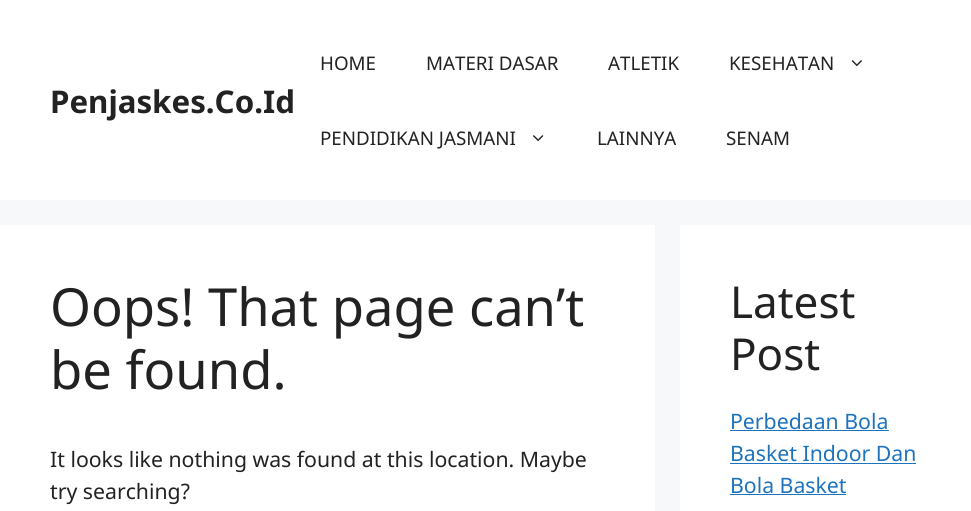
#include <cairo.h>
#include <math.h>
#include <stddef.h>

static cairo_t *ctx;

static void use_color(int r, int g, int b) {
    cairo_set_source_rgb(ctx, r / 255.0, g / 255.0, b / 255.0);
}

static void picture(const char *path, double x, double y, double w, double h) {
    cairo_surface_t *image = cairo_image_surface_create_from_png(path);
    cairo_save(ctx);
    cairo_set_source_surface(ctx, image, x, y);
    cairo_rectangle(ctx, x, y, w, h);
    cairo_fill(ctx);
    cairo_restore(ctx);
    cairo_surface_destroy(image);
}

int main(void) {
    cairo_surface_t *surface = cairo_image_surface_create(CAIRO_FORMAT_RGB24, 971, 511);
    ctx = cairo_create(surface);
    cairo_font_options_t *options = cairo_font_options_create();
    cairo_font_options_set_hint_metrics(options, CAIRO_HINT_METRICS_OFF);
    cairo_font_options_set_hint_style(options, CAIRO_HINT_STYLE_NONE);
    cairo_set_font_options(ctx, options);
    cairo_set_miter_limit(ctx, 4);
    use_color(247, 248, 249);
    cairo_paint(ctx);
    use_color(255, 255, 255);
    cairo_rectangle(ctx, 0, 0, 971, 200);
    cairo_fill(ctx);
    cairo_select_font_face(ctx, "Noto Sans", CAIRO_FONT_SLANT_NORMAL, CAIRO_FONT_WEIGHT_BOLD);
    cairo_set_font_size(ctx, 31.25);
    use_color(34, 34, 34);
    cairo_move_to(ctx, 50, 113);
    cairo_show_text(ctx, "Penjaskes.Co.Id");
    cairo_select_font_face(ctx, "Noto Sans", CAIRO_FONT_SLANT_NORMAL, CAIRO_FONT_WEIGHT_NORMAL);
    cairo_set_font_size(ctx, 18.75);
    cairo_move_to(ctx, 320, 70);
    cairo_show_text(ctx, "HOME");
    cairo_move_to(ctx, 426, 70);
    cairo_show_text(ctx, "MATERI DASAR");
    cairo_move_to(ctx, 608, 70);
    cairo_show_text(ctx, "ATLETIK");
    cairo_move_to(ctx, 729, 70);
    cairo_show_text(ctx, "KESEHATAN");
    picture("img1.png", 851, 60, 11, 7);
    cairo_move_to(ctx, 320, 145);
    cairo_show_text(ctx, "PENDIDIKAN JASMANI");
    picture("img2.png", 533, 135, 11, 7);
    cairo_move_to(ctx, 597, 145);
    cairo_show_text(ctx, "LAINNYA");
    cairo_move_to(ctx, 726, 145);
    cairo_show_text(ctx, "SENAM");
    use_color(255, 255, 255);
    cairo_rectangle(ctx, 0, 225, 655, 286);
    cairo_fill(ctx);
    cairo_set_font_size(ctx, 52.5);
    use_color(34, 34, 34);
    cairo_move_to(ctx, 50, 326);
    cairo_show_text(ctx, "Oops! That page can’t");
    cairo_move_to(ctx, 50, 389);
    cairo_show_text(ctx, "be found.");
    cairo_set_font_size(ctx, 21.25);
    cairo_move_to(ctx, 50, 467);
    cairo_show_text(ctx, "It looks like nothing was found at this location. Maybe");
    cairo_move_to(ctx, 50, 499);
    cairo_show_text(ctx, "try searching?");
    use_color(255, 255, 255);
    cairo_rectangle(ctx, 680, 225, 291, 286);
    cairo_fill(ctx);
    cairo_set_font_size(ctx, 44);
    use_color(34, 34, 34);
    cairo_move_to(ctx, 730, 318);
    cairo_show_text(ctx, "Latest");
    cairo_move_to(ctx, 730, 370);
    cairo_show_text(ctx, "Post");
    cairo_set_font_size(ctx, 21.25);
    use_color(30, 115, 190);
    cairo_move_to(ctx, 730, 429);
    cairo_show_text(ctx, "Perbedaan Bola");
    cairo_rectangle(ctx, 730, 430, 159, 1);
    cairo_fill(ctx);
    cairo_move_to(ctx, 730, 461);
    cairo_show_text(ctx, "Basket Indoor Dan");
    cairo_rectangle(ctx, 730, 463, 186, 1);
    cairo_fill(ctx);
    cairo_move_to(ctx, 730, 493);
    cairo_show_text(ctx, "Bola Basket");
    cairo_rectangle(ctx, 730, 494, 116, 1);
    cairo_fill(ctx);
    cairo_surface_write_to_png(surface, "result.png");
    cairo_font_options_destroy(options);
    cairo_destroy(ctx);
    cairo_surface_destroy(surface);
    return 0;
}
